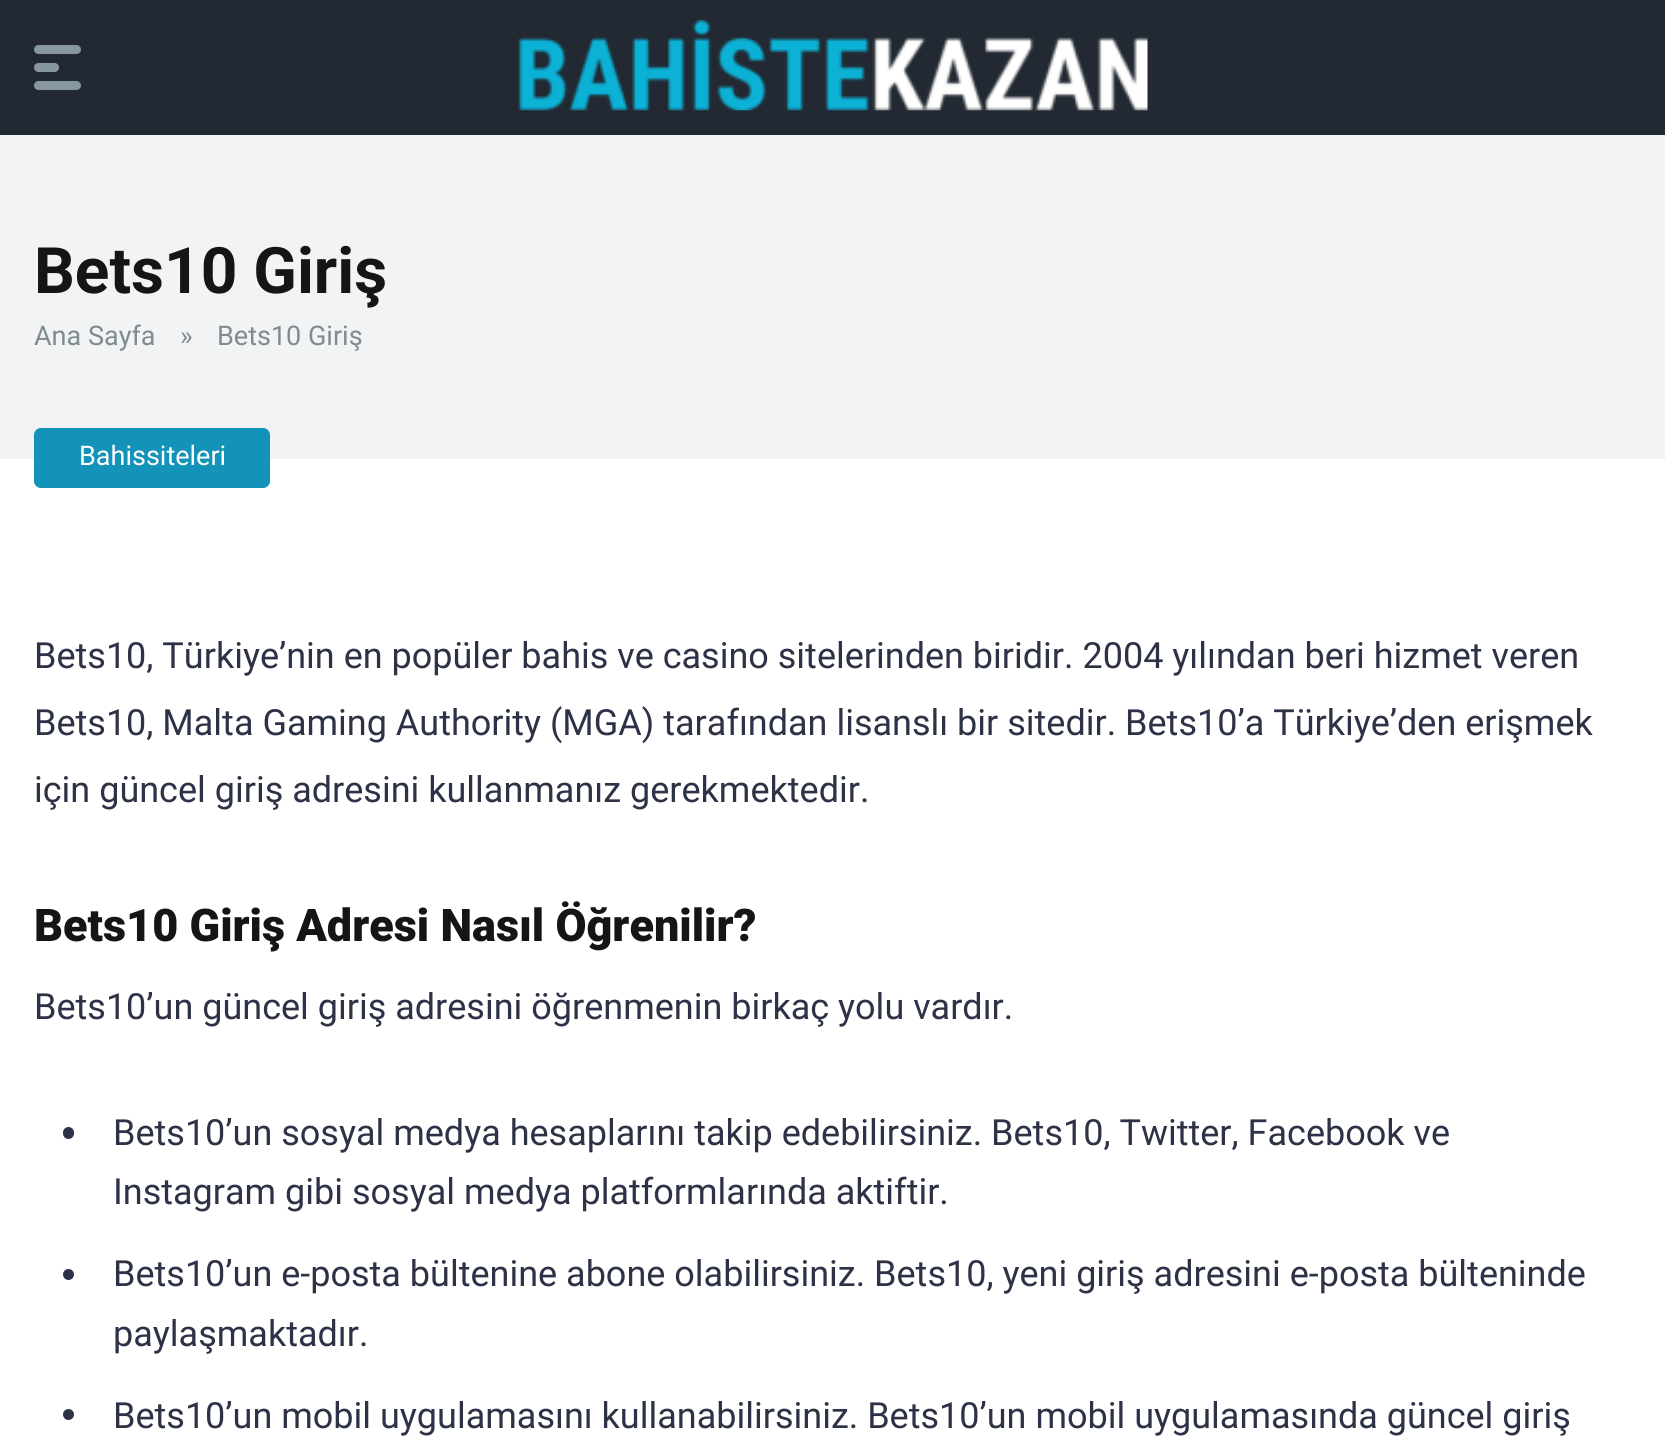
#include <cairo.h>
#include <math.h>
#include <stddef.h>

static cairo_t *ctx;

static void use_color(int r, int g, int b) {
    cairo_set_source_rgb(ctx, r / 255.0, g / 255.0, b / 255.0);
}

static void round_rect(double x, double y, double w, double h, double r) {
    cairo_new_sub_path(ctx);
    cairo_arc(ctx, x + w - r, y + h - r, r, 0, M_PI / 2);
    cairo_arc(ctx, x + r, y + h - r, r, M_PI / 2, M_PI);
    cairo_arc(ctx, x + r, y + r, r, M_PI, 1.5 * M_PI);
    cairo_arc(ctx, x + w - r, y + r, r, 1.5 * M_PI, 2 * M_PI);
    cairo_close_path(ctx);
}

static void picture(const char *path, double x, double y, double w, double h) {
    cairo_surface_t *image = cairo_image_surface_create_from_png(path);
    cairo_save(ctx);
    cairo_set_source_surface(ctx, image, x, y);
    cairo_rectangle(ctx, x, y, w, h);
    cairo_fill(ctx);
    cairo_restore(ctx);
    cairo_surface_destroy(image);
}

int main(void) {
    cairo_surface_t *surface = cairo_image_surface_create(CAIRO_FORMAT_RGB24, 1665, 1440);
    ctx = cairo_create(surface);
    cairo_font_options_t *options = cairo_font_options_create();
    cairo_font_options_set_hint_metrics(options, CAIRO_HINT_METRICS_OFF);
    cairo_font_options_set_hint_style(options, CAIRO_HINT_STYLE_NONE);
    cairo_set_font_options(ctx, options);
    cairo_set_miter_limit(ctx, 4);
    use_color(255, 255, 255);
    cairo_paint(ctx);
    use_color(34, 41, 50);
    cairo_rectangle(ctx, 0, 0, 1665, 135);
    cairo_fill(ctx);
    use_color(134, 151, 162);
    round_rect(34, 45, 47, 9, 4.5);
    cairo_fill(ctx);
    round_rect(34, 63, 25, 9, 4.5);
    cairo_fill(ctx);
    round_rect(34, 81, 47, 9, 4.5);
    cairo_fill(ctx);
    picture("img1.png", 517, 20, 631, 91);
    use_color(241, 243, 244);
    cairo_rectangle(ctx, 0, 135, 1665, 324);
    cairo_fill(ctx);
    cairo_select_font_face(ctx, "Roboto", CAIRO_FONT_SLANT_NORMAL, CAIRO_FONT_WEIGHT_BOLD);
    cairo_set_font_size(ctx, 64);
    use_color(21, 21, 21);
    cairo_move_to(ctx, 34, 293);
    cairo_show_text(ctx, "Bets10 Giriş");
    cairo_select_font_face(ctx, "Roboto", CAIRO_FONT_SLANT_NORMAL, CAIRO_FONT_WEIGHT_NORMAL);
    cairo_set_font_size(ctx, 27);
    use_color(127, 140, 141);
    cairo_move_to(ctx, 34, 345);
    cairo_show_text(ctx, "Ana Sayfa");
    cairo_move_to(ctx, 180, 345);
    cairo_show_text(ctx, "»");
    cairo_move_to(ctx, 217, 345);
    cairo_show_text(ctx, "Bets10 Giriş");
    use_color(18, 147, 183);
    round_rect(34, 428, 236, 60, 7);
    cairo_fill(ctx);
    use_color(255, 255, 255);
    cairo_move_to(ctx, 79, 465);
    cairo_show_text(ctx, "Bahissiteleri");
    cairo_set_font_size(ctx, 36);
    use_color(46, 50, 70);
    cairo_move_to(ctx, 34, 668);
    cairo_show_text(ctx, "Bets10, Türkiye’nin en popüler bahis ve casino sitelerinden biridir. 2004 yılından beri hizmet veren");
    cairo_move_to(ctx, 34, 735);
    cairo_show_text(ctx, "Bets10, Malta Gaming Authority (MGA) tarafından lisanslı bir sitedir. Bets10’a Türkiye’den erişmek");
    cairo_move_to(ctx, 34, 802);
    cairo_show_text(ctx, "için güncel giriş adresini kullanmanız gerekmektedir.");
    cairo_select_font_face(ctx, "Roboto Black", CAIRO_FONT_SLANT_NORMAL, CAIRO_FONT_WEIGHT_NORMAL);
    cairo_set_font_size(ctx, 45);
    use_color(21, 21, 21);
    cairo_move_to(ctx, 34, 941);
    cairo_show_text(ctx, "Bets10 Giriş Adresi Nasıl Öğrenilir?");
    cairo_select_font_face(ctx, "Roboto", CAIRO_FONT_SLANT_NORMAL, CAIRO_FONT_WEIGHT_NORMAL);
    cairo_set_font_size(ctx, 36);
    use_color(46, 50, 70);
    cairo_move_to(ctx, 34, 1019);
    cairo_show_text(ctx, "Bets10’un güncel giriş adresini öğrenmenin birkaç yolu vardır.");
    round_rect(63, 1127, 11, 12, 5.5);
    cairo_fill(ctx);
    cairo_move_to(ctx, 113, 1145);
    cairo_show_text(ctx, "Bets10’un sosyal medya hesaplarını takip edebilirsiniz. Bets10, Twitter, Facebook ve");
    cairo_move_to(ctx, 113, 1204);
    cairo_show_text(ctx, "Instagram gibi sosyal medya platformlarında aktiftir.");
    cairo_new_path(ctx);
    cairo_arc(ctx, 68.5, 1274.5, 5.5, 0, 2 * M_PI);
    cairo_fill(ctx);
    cairo_move_to(ctx, 113, 1286);
    cairo_show_text(ctx, "Bets10’un e-posta bültenine abone olabilirsiniz. Bets10, yeni giriş adresini e-posta bülteninde");
    cairo_move_to(ctx, 113, 1346);
    cairo_show_text(ctx, "paylaşmaktadır.");
    cairo_new_path(ctx);
    cairo_arc(ctx, 68.5, 1414.5, 5.5, 0, 2 * M_PI);
    cairo_fill(ctx);
    cairo_move_to(ctx, 113, 1428);
    cairo_show_text(ctx, "Bets10’un mobil uygulamasını kullanabilirsiniz. Bets10’un mobil uygulamasında güncel giriş");
    cairo_surface_write_to_png(surface, "result.png");
    cairo_font_options_destroy(options);
    cairo_destroy(ctx);
    cairo_surface_destroy(surface);
    return 0;
}
